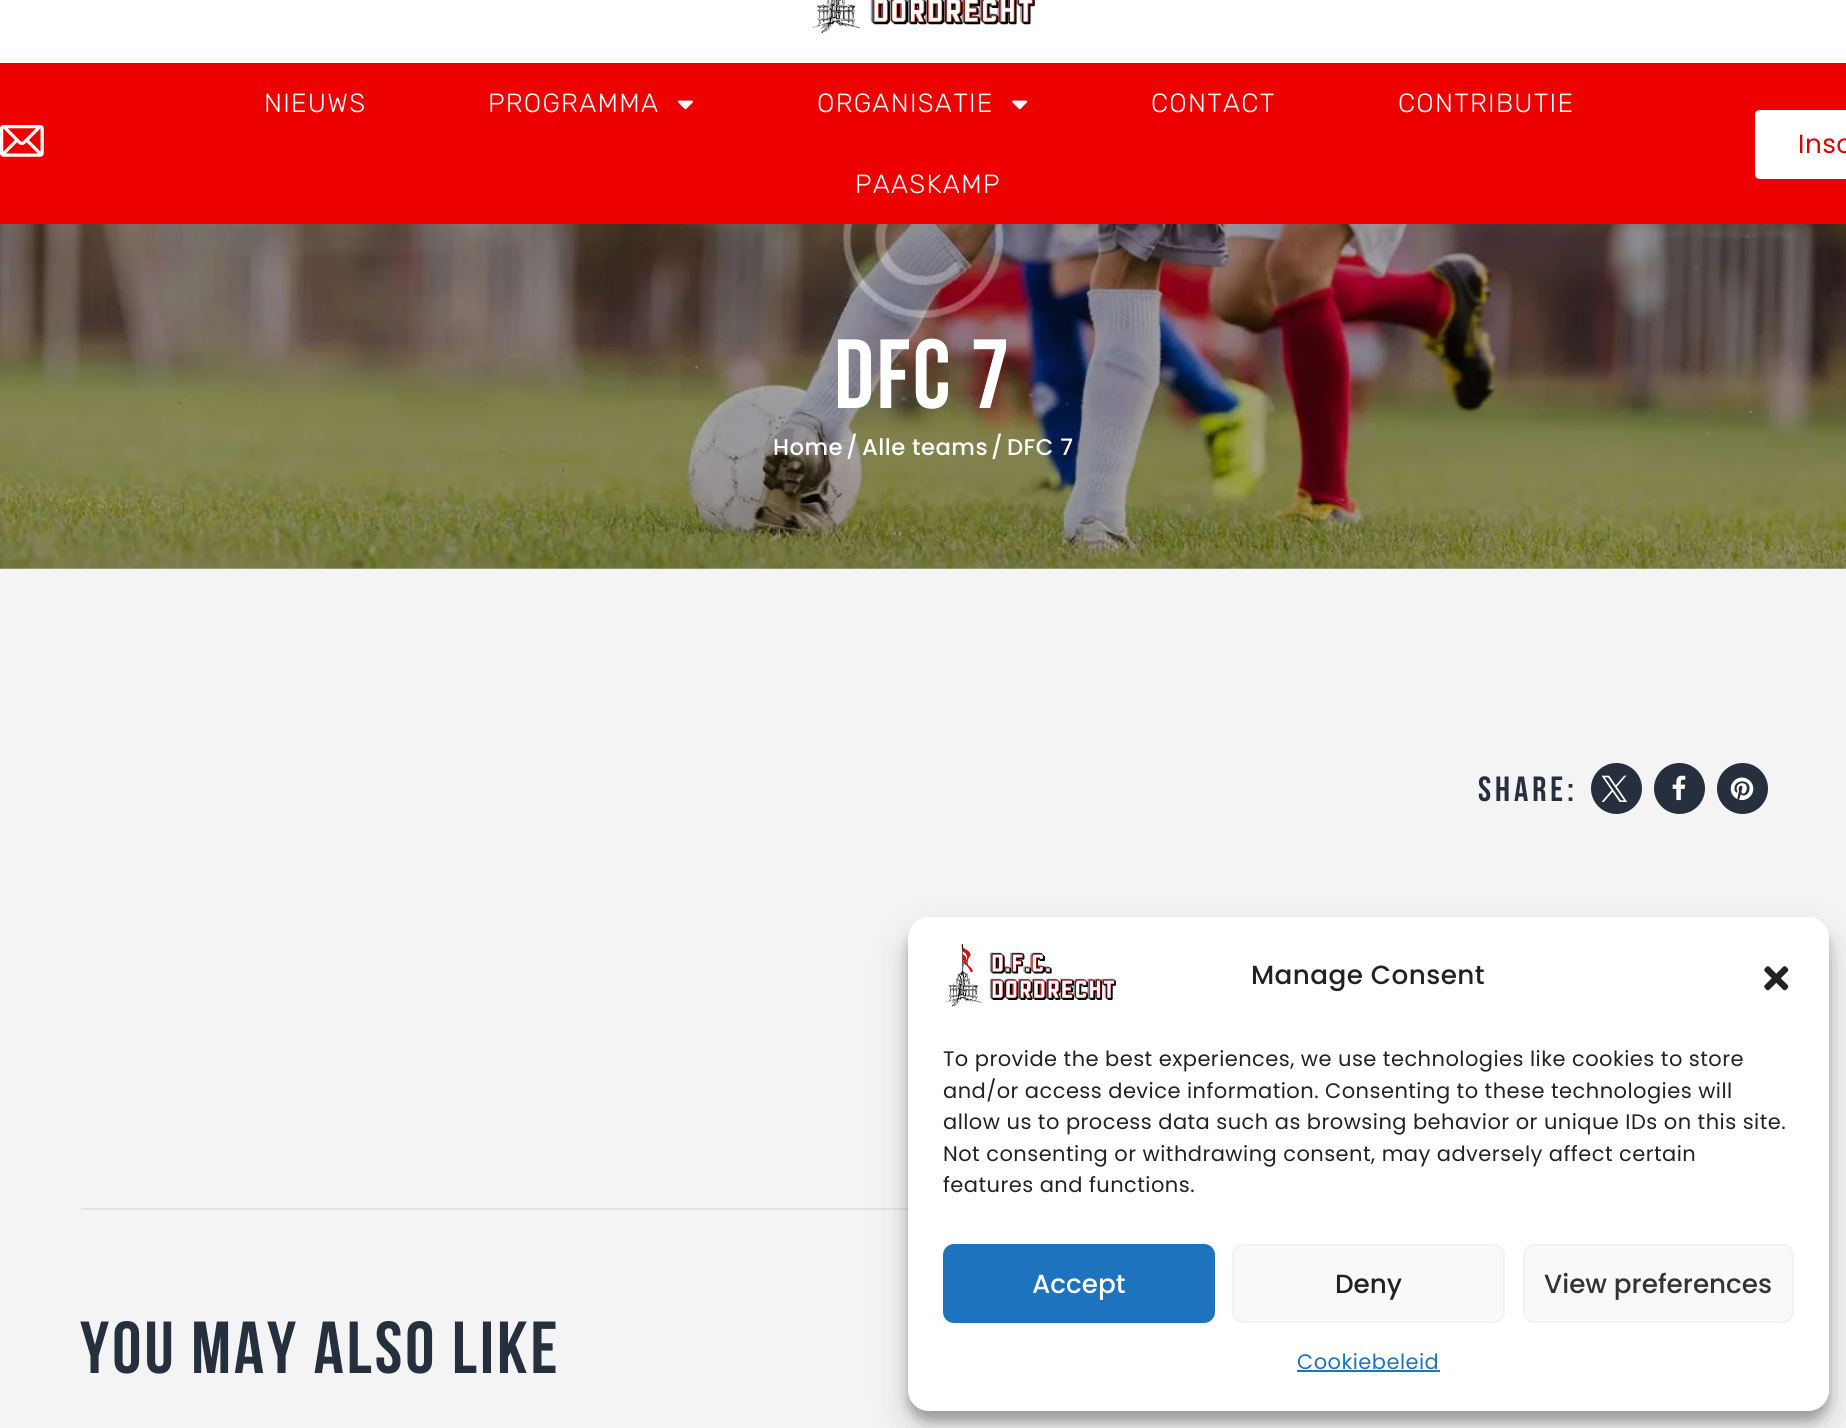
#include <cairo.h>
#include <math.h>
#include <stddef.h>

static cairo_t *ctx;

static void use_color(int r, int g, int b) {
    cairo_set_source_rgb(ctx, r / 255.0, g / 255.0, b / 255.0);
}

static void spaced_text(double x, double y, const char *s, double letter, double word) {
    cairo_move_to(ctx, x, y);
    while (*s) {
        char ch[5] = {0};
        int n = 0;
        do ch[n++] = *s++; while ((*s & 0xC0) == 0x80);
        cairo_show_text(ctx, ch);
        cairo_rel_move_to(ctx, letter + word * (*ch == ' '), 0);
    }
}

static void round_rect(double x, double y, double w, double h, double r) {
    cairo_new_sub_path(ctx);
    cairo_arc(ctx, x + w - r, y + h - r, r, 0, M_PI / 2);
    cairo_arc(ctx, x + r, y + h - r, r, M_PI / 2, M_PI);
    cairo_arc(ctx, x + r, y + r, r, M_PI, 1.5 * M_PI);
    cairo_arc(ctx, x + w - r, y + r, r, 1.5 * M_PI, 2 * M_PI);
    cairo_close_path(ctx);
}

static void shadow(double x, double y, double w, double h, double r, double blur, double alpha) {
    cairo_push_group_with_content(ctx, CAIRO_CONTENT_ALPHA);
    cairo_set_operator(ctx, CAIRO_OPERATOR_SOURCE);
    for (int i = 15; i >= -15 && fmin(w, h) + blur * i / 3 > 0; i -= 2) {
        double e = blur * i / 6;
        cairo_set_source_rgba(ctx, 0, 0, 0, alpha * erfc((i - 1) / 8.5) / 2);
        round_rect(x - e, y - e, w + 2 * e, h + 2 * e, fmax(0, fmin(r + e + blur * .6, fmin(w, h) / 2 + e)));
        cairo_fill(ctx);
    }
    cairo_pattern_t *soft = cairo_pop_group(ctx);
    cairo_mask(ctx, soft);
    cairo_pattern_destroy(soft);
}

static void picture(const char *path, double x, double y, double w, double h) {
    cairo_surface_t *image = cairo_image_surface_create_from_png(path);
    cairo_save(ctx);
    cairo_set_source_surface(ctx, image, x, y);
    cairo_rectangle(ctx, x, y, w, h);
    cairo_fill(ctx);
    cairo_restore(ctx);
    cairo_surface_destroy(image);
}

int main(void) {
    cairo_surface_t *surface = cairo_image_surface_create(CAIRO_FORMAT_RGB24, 1846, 1428);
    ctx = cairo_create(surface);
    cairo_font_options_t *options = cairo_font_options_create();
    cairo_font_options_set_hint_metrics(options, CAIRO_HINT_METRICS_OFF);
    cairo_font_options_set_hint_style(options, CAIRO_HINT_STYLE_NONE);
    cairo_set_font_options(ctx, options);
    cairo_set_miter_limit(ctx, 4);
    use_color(244, 244, 244);
    cairo_paint(ctx);
    use_color(255, 255, 255);
    cairo_rectangle(ctx, 0, 0, 1846, 569);
    cairo_fill(ctx);
    picture("img1.png", 812, 0, 223, 33);
    use_color(236, 0, 0);
    cairo_rectangle(ctx, 0, 63, 1846, 161);
    cairo_fill(ctx);
    picture("img2.png", 0, 125, 44, 32);
    cairo_select_font_face(ctx, "Rubik Light", CAIRO_FONT_SLANT_NORMAL, CAIRO_FONT_WEIGHT_NORMAL);
    cairo_set_font_size(ctx, 26.25);
    use_color(255, 255, 255);
    spaced_text(264, 112, "NIEUWS", 1.25, 0);
    spaced_text(488, 112, "PROGRAMMA", 1.25, 0);
    picture("img3.png", 677, 100, 16, 10);
    spaced_text(817, 112, "ORGANISATIE", 1.25, 0);
    picture("img4.png", 1012, 100, 16, 10);
    spaced_text(1151, 112, "CONTACT", 1.25, 0);
    spaced_text(1398, 112, "CONTRIBUTIE", 1.25, 0);
    spaced_text(855, 193, "PAASKAMP", 1.25, 0);
    cairo_new_path(ctx);
    cairo_move_to(ctx, 1760, 110);
    cairo_line_to(ctx, 1846, 110);
    cairo_line_to(ctx, 1846, 179);
    cairo_line_to(ctx, 1760, 179);
    cairo_curve_to(ctx, 1757, 179, 1755, 177, 1755, 174);
    cairo_line_to(ctx, 1755, 115);
    cairo_curve_to(ctx, 1755, 112, 1757, 110, 1760, 110);
    cairo_close_path(ctx);
    cairo_fill(ctx);
    cairo_select_font_face(ctx, "Poppins", CAIRO_FONT_SLANT_NORMAL, CAIRO_FONT_WEIGHT_NORMAL);
    use_color(217, 0, 0);
    spaced_text(1798, 153, "Insc", 0.45, 0);
    picture("img5.png", 0, 224, 1846, 345);
    cairo_select_font_face(ctx, "Bebas Neue", CAIRO_FONT_SLANT_NORMAL, CAIRO_FONT_WEIGHT_BOLD);
    cairo_set_font_size(ctx, 98);
    use_color(255, 255, 255);
    spaced_text(834, 408, "DFC 7", 2.5, 0);
    cairo_select_font_face(ctx, "Poppins Medium", CAIRO_FONT_SLANT_NORMAL, CAIRO_FONT_WEIGHT_NORMAL);
    cairo_set_font_size(ctx, 22.75);
    spaced_text(773, 455, "Home", 0.45, 0);
    spaced_text(846, 455, "/", 0.45, 0);
    spaced_text(862, 455, "Alle teams", 0.45, 0);
    spaced_text(991, 455, "/", 0.45, 0);
    spaced_text(1007, 455, "DFC 7", 0.45, 0);
    cairo_select_font_face(ctx, "Bebas Neue", CAIRO_FONT_SLANT_NORMAL, CAIRO_FONT_WEIGHT_BOLD);
    cairo_set_font_size(ctx, 35);
    use_color(38, 47, 62);
    spaced_text(1478, 801, "share:", 4, 0);
    cairo_new_path(ctx);
    cairo_arc(ctx, 1616.5, 788.5, 25.5, 0, 2 * M_PI);
    cairo_fill(ctx);
    picture("img6.png", 1601, 775, 27, 27);
    cairo_arc(ctx, 1679.5, 788.5, 25.5, 0, 2 * M_PI);
    cairo_fill(ctx);
    picture("img7.png", 1672, 775, 14, 26);
    cairo_arc(ctx, 1742.5, 788.5, 25.5, 0, 2 * M_PI);
    cairo_fill(ctx);
    picture("img8.png", 1730, 777, 24, 24);
    use_color(227, 227, 227);
    cairo_rectangle(ctx, 81, 1208, 827, 2);
    cairo_fill(ctx);
    cairo_set_font_size(ctx, 73.5);
    use_color(38, 47, 62);
    spaced_text(80, 1373, "You May Also Like", 3.1, 0);
    use_color(0, 0, 0);
    shadow(908, 928, 921, 493, 21, 5, 0.23);
    shadow(908, 935, 921, 493, 21, 17.5, 0.19);
    use_color(255, 255, 255);
    round_rect(908, 917, 921, 494, 21);
    cairo_fill(ctx);
    picture("img9.png", 945, 944, 171, 63);
    cairo_select_font_face(ctx, "Poppins Medium", CAIRO_FONT_SLANT_NORMAL, CAIRO_FONT_WEIGHT_NORMAL);
    cairo_set_font_size(ctx, 26.25);
    use_color(34, 34, 34);
    spaced_text(1251, 984, "Manage Consent", 0.45, 0);
    picture("img10.png", 1764, 966, 25, 25);
    cairo_select_font_face(ctx, "Poppins", CAIRO_FONT_SLANT_NORMAL, CAIRO_FONT_WEIGHT_NORMAL);
    cairo_set_font_size(ctx, 21);
    spaced_text(943, 1066, "To provide the best experiences, we use technologies like cookies to store", 0.45, 0);
    spaced_text(943, 1098, "and/or access device information. Consenting to these technologies will", 0.45, 0);
    spaced_text(943, 1129, "allow us to process data such as browsing behavior or unique IDs on this site.", 0.45, 0);
    spaced_text(943, 1161, "Not consenting or withdrawing consent, may adversely affect certain", 0.45, 0);
    spaced_text(943, 1192, "features and functions.", 0.45, 0);
    use_color(30, 115, 190);
    round_rect(944, 1245, 270, 77, 10);
    cairo_fill_preserve(ctx);
    cairo_stroke(ctx);
    cairo_select_font_face(ctx, "Poppins Medium", CAIRO_FONT_SLANT_NORMAL, CAIRO_FONT_WEIGHT_NORMAL);
    cairo_set_font_size(ctx, 26.25);
    use_color(255, 255, 255);
    cairo_move_to(ctx, 1032, 1293);
    cairo_show_text(ctx, "Accept");
    use_color(249, 249, 249);
    round_rect(1233, 1245, 271, 77, 10);
    cairo_fill_preserve(ctx);
    use_color(242, 242, 242);
    cairo_stroke(ctx);
    use_color(34, 34, 34);
    cairo_move_to(ctx, 1335, 1293);
    cairo_show_text(ctx, "Deny");
    use_color(249, 249, 249);
    round_rect(1524, 1245, 269, 77, 10);
    cairo_fill_preserve(ctx);
    use_color(242, 242, 242);
    cairo_stroke(ctx);
    use_color(51, 51, 51);
    cairo_move_to(ctx, 1544, 1293);
    cairo_show_text(ctx, "View preferences");
    cairo_select_font_face(ctx, "Poppins", CAIRO_FONT_SLANT_NORMAL, CAIRO_FONT_WEIGHT_NORMAL);
    cairo_set_font_size(ctx, 21);
    use_color(30, 115, 190);
    spaced_text(1297, 1369, "Cookiebeleid", 0.45, 0);
    cairo_rectangle(ctx, 1297, 1370, 143, 2);
    cairo_fill(ctx);
    cairo_surface_write_to_png(surface, "result.png");
    cairo_font_options_destroy(options);
    cairo_destroy(ctx);
    cairo_surface_destroy(surface);
    return 0;
}
